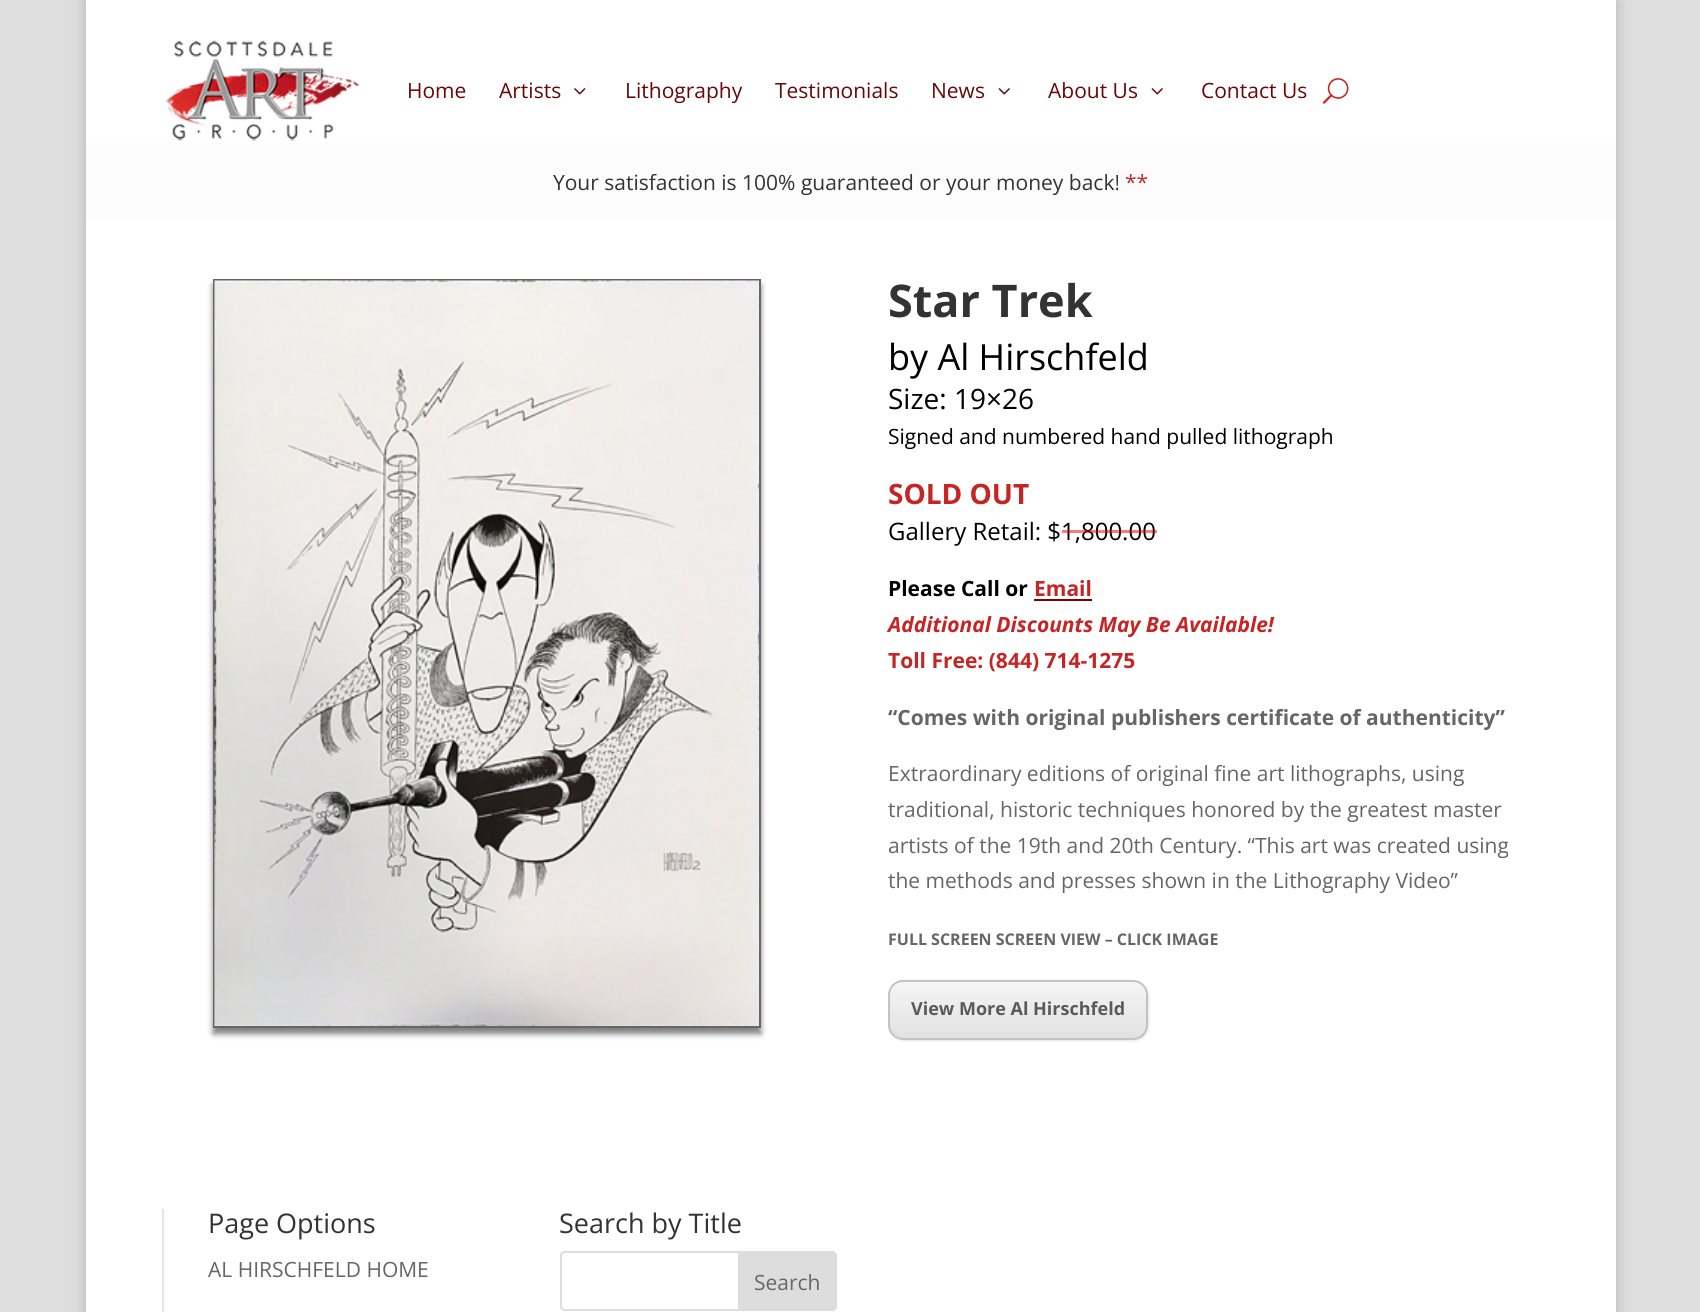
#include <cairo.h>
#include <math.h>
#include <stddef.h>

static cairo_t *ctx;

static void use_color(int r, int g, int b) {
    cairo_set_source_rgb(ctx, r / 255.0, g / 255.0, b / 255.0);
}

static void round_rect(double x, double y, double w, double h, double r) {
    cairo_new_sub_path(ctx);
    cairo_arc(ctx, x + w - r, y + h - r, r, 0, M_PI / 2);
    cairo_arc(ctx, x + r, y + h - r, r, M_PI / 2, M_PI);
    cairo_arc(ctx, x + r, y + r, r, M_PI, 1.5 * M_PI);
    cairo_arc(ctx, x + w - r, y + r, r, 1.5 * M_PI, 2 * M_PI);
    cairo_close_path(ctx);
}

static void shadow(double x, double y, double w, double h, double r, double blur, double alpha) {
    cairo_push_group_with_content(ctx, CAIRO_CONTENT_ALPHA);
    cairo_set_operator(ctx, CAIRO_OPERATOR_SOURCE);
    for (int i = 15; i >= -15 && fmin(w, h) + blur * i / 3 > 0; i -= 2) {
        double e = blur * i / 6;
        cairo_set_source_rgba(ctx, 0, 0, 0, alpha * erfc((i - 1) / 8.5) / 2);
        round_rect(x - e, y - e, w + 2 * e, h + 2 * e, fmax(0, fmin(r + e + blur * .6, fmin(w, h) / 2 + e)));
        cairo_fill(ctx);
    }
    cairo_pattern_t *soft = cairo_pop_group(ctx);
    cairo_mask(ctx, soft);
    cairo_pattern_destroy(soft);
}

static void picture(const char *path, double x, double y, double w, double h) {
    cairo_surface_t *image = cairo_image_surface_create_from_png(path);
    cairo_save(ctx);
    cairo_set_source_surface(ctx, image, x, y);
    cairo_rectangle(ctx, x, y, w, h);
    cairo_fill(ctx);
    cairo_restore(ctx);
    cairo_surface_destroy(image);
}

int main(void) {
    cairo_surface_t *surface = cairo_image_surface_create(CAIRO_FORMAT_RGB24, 1700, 1312);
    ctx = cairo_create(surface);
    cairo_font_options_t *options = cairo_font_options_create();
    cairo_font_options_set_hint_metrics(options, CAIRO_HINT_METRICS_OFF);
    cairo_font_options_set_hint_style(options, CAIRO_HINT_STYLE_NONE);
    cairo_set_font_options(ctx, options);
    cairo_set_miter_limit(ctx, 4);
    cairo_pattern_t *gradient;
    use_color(222, 222, 222);
    cairo_paint(ctx);
    use_color(0, 0, 0);
    shadow(86, 0, 1530, 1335, 0, 7.5, 0.2);
    use_color(255, 255, 255);
    cairo_rectangle(ctx, 86, 0, 1530, 143);
    cairo_fill(ctx);
    picture("img1.png", 165, 40, 195, 101);
    cairo_select_font_face(ctx, "Open Sans", CAIRO_FONT_SLANT_NORMAL, CAIRO_FONT_WEIGHT_NORMAL);
    cairo_set_font_size(ctx, 21);
    use_color(104, 9, 9);
    cairo_move_to(ctx, 407, 98);
    cairo_show_text(ctx, "Home");
    cairo_move_to(ctx, 499, 98);
    cairo_show_text(ctx, "Artists");
    picture("img2.png", 574, 88, 12, 7);
    cairo_move_to(ctx, 625, 98);
    cairo_show_text(ctx, "Lithography");
    cairo_move_to(ctx, 775, 98);
    cairo_show_text(ctx, "Testimonials");
    cairo_move_to(ctx, 931, 98);
    cairo_show_text(ctx, "News");
    picture("img3.png", 998, 88, 12, 7);
    cairo_move_to(ctx, 1048, 98);
    cairo_show_text(ctx, "About Us");
    picture("img3.png", 1151, 88, 12, 7);
    cairo_move_to(ctx, 1201, 98);
    cairo_show_text(ctx, "Contact Us");
    picture("img4.png", 1322, 78, 27, 26);
    use_color(252, 252, 252);
    cairo_rectangle(ctx, 86, 143, 1530, 75);
    cairo_fill(ctx);
    use_color(51, 51, 51);
    cairo_move_to(ctx, 553, 190);
    cairo_show_text(ctx, "Your satisfaction is 100% guaranteed or your money back!");
    use_color(198, 37, 37);
    cairo_move_to(ctx, 1125, 190);
    cairo_show_text(ctx, "**");
    use_color(255, 255, 255);
    cairo_rectangle(ctx, 86, 218, 1530, 1094);
    cairo_fill(ctx);
    use_color(0, 0, 0);
    shadow(213, 285, 548, 749, 0, 3, 0.5);
    cairo_rectangle(ctx, 214, 280, 546, 747);
    use_color(102, 102, 102);
    cairo_stroke(ctx);
    picture("img5.png", 214, 280, 545, 746);
    cairo_select_font_face(ctx, "Open Sans", CAIRO_FONT_SLANT_NORMAL, CAIRO_FONT_WEIGHT_BOLD);
    cairo_set_font_size(ctx, 45);
    use_color(51, 51, 51);
    cairo_move_to(ctx, 888, 317);
    cairo_show_text(ctx, "Star Trek");
    cairo_select_font_face(ctx, "Open Sans", CAIRO_FONT_SLANT_NORMAL, CAIRO_FONT_WEIGHT_NORMAL);
    cairo_set_font_size(ctx, 36);
    use_color(0, 0, 0);
    cairo_move_to(ctx, 888, 370);
    cairo_show_text(ctx, "by Al Hirschfeld");
    cairo_set_font_size(ctx, 28);
    cairo_move_to(ctx, 888, 409);
    cairo_show_text(ctx, "Size: 19×26");
    cairo_set_font_size(ctx, 21);
    cairo_move_to(ctx, 888, 444);
    cairo_show_text(ctx, "Signed and numbered hand pulled lithograph");
    cairo_select_font_face(ctx, "Open Sans", CAIRO_FONT_SLANT_NORMAL, CAIRO_FONT_WEIGHT_BOLD);
    cairo_set_font_size(ctx, 28);
    use_color(198, 37, 37);
    cairo_move_to(ctx, 888, 504);
    cairo_show_text(ctx, "SOLD OUT");
    cairo_select_font_face(ctx, "Open Sans", CAIRO_FONT_SLANT_NORMAL, CAIRO_FONT_WEIGHT_NORMAL);
    cairo_set_font_size(ctx, 24);
    use_color(0, 0, 0);
    cairo_move_to(ctx, 888, 540);
    cairo_show_text(ctx, "Gallery Retail: $1,800.00");
    cairo_set_source_rgba(ctx, 0.89, 0, 0, 0.5);
    cairo_rectangle(ctx, 1062, 530, 95, 3);
    cairo_fill(ctx);
    cairo_select_font_face(ctx, "Open Sans", CAIRO_FONT_SLANT_NORMAL, CAIRO_FONT_WEIGHT_BOLD);
    cairo_set_font_size(ctx, 21);
    use_color(0, 0, 0);
    cairo_move_to(ctx, 888, 596);
    cairo_show_text(ctx, "Please Call or");
    use_color(198, 37, 37);
    cairo_move_to(ctx, 1034, 596);
    cairo_show_text(ctx, "Email");
    use_color(128, 0, 0);
    cairo_rectangle(ctx, 1034, 599, 58, 2);
    cairo_fill(ctx);
    cairo_select_font_face(ctx, "Open Sans", CAIRO_FONT_SLANT_ITALIC, CAIRO_FONT_WEIGHT_BOLD);
    use_color(198, 37, 37);
    cairo_move_to(ctx, 888, 632);
    cairo_show_text(ctx, "Additional Discounts May Be Available!");
    cairo_select_font_face(ctx, "Open Sans", CAIRO_FONT_SLANT_NORMAL, CAIRO_FONT_WEIGHT_BOLD);
    cairo_move_to(ctx, 888, 668);
    cairo_show_text(ctx, "Toll Free: (844) 714-1275");
    use_color(102, 102, 102);
    cairo_move_to(ctx, 888, 725);
    cairo_show_text(ctx, "“Comes with original publishers certificate of authenticity”");
    cairo_select_font_face(ctx, "Open Sans", CAIRO_FONT_SLANT_NORMAL, CAIRO_FONT_WEIGHT_NORMAL);
    cairo_move_to(ctx, 888, 781);
    cairo_show_text(ctx, "Extraordinary editions of original fine art lithographs, using");
    cairo_move_to(ctx, 888, 817);
    cairo_show_text(ctx, "traditional, historic techniques honored by the greatest master");
    cairo_move_to(ctx, 888, 853);
    cairo_show_text(ctx, "artists of the 19th and 20th Century. “This art was created using");
    cairo_move_to(ctx, 888, 888);
    cairo_show_text(ctx, "the methods and presses shown in the Lithography Video”");
    cairo_select_font_face(ctx, "Open Sans", CAIRO_FONT_SLANT_NORMAL, CAIRO_FONT_WEIGHT_BOLD);
    cairo_set_font_size(ctx, 16);
    cairo_move_to(ctx, 888, 945);
    cairo_show_text(ctx, "FULL SCREEN SCREEN VIEW – CLICK IMAGE");
    use_color(0, 0, 0);
    shadow(890, 981, 259, 60, 15, 1, 0.1);
    cairo_save(ctx);
    round_rect(888, 980, 260, 60, 15);
    cairo_clip(ctx);
    gradient = cairo_pattern_create_linear(1018, 981, 1018, 1038);
    cairo_pattern_add_color_stop_rgba(gradient, 0, 0.961, 0.961, 0.961, 1);
    cairo_pattern_add_color_stop_rgba(gradient, 1, 0.886, 0.886, 0.886, 1);
    cairo_set_source(ctx, gradient);
    cairo_pattern_destroy(gradient);
    cairo_rectangle(ctx, 888, 981, 260, 57);
    cairo_fill(ctx);
    cairo_restore(ctx);
    cairo_set_source_rgba(ctx, 1, 1, 1, 0.9);
    cairo_new_path(ctx);
    cairo_move_to(ctx, 903, 982);
    cairo_line_to(ctx, 1132, 982);
    cairo_curve_to(ctx, 1140, 982, 1146, 989, 1146, 996);
    cairo_line_to(ctx, 1146, 995);
    cairo_curve_to(ctx, 1146, 987, 1140, 981, 1132, 981);
    cairo_line_to(ctx, 904, 981);
    cairo_curve_to(ctx, 896, 981, 890, 987, 890, 995);
    cairo_line_to(ctx, 890, 996);
    cairo_curve_to(ctx, 890, 989, 896, 982, 903, 982);
    cairo_close_path(ctx);
    cairo_fill(ctx);
    round_rect(889, 981, 258, 58, 14);
    use_color(195, 195, 195);
    cairo_stroke(ctx);
    cairo_set_font_size(ctx, 18);
    use_color(89, 90, 90);
    cairo_move_to(ctx, 911, 1015);
    cairo_show_text(ctx, "View More Al Hirschfeld");
    use_color(230, 230, 230);
    cairo_rectangle(ctx, 162, 1209, 2, 103);
    cairo_fill(ctx);
    cairo_select_font_face(ctx, "Open Sans", CAIRO_FONT_SLANT_NORMAL, CAIRO_FONT_WEIGHT_NORMAL);
    cairo_set_font_size(ctx, 27);
    use_color(51, 51, 51);
    cairo_move_to(ctx, 208, 1233);
    cairo_show_text(ctx, "Page Options");
    cairo_set_font_size(ctx, 21);
    use_color(102, 102, 102);
    cairo_move_to(ctx, 208, 1277);
    cairo_show_text(ctx, "AL HIRSCHFELD HOME");
    cairo_set_font_size(ctx, 27);
    use_color(51, 51, 51);
    cairo_move_to(ctx, 559, 1233);
    cairo_show_text(ctx, "Search by Title");
    round_rect(561, 1252, 275, 58, 4);
    use_color(221, 221, 221);
    cairo_stroke(ctx);
    cairo_new_path(ctx);
    cairo_move_to(ctx, 739, 1252);
    cairo_line_to(ctx, 832, 1252);
    cairo_curve_to(ctx, 834, 1252, 836, 1254, 836, 1256);
    cairo_line_to(ctx, 836, 1306);
    cairo_curve_to(ctx, 836, 1308, 834, 1310, 832, 1310);
    cairo_line_to(ctx, 739, 1310);
    cairo_close_path(ctx);
    cairo_fill_preserve(ctx);
    cairo_stroke(ctx);
    cairo_set_font_size(ctx, 21);
    use_color(102, 102, 102);
    cairo_move_to(ctx, 754, 1290);
    cairo_show_text(ctx, "Search");
    cairo_surface_write_to_png(surface, "result.png");
    cairo_font_options_destroy(options);
    cairo_destroy(ctx);
    cairo_surface_destroy(surface);
    return 0;
}
